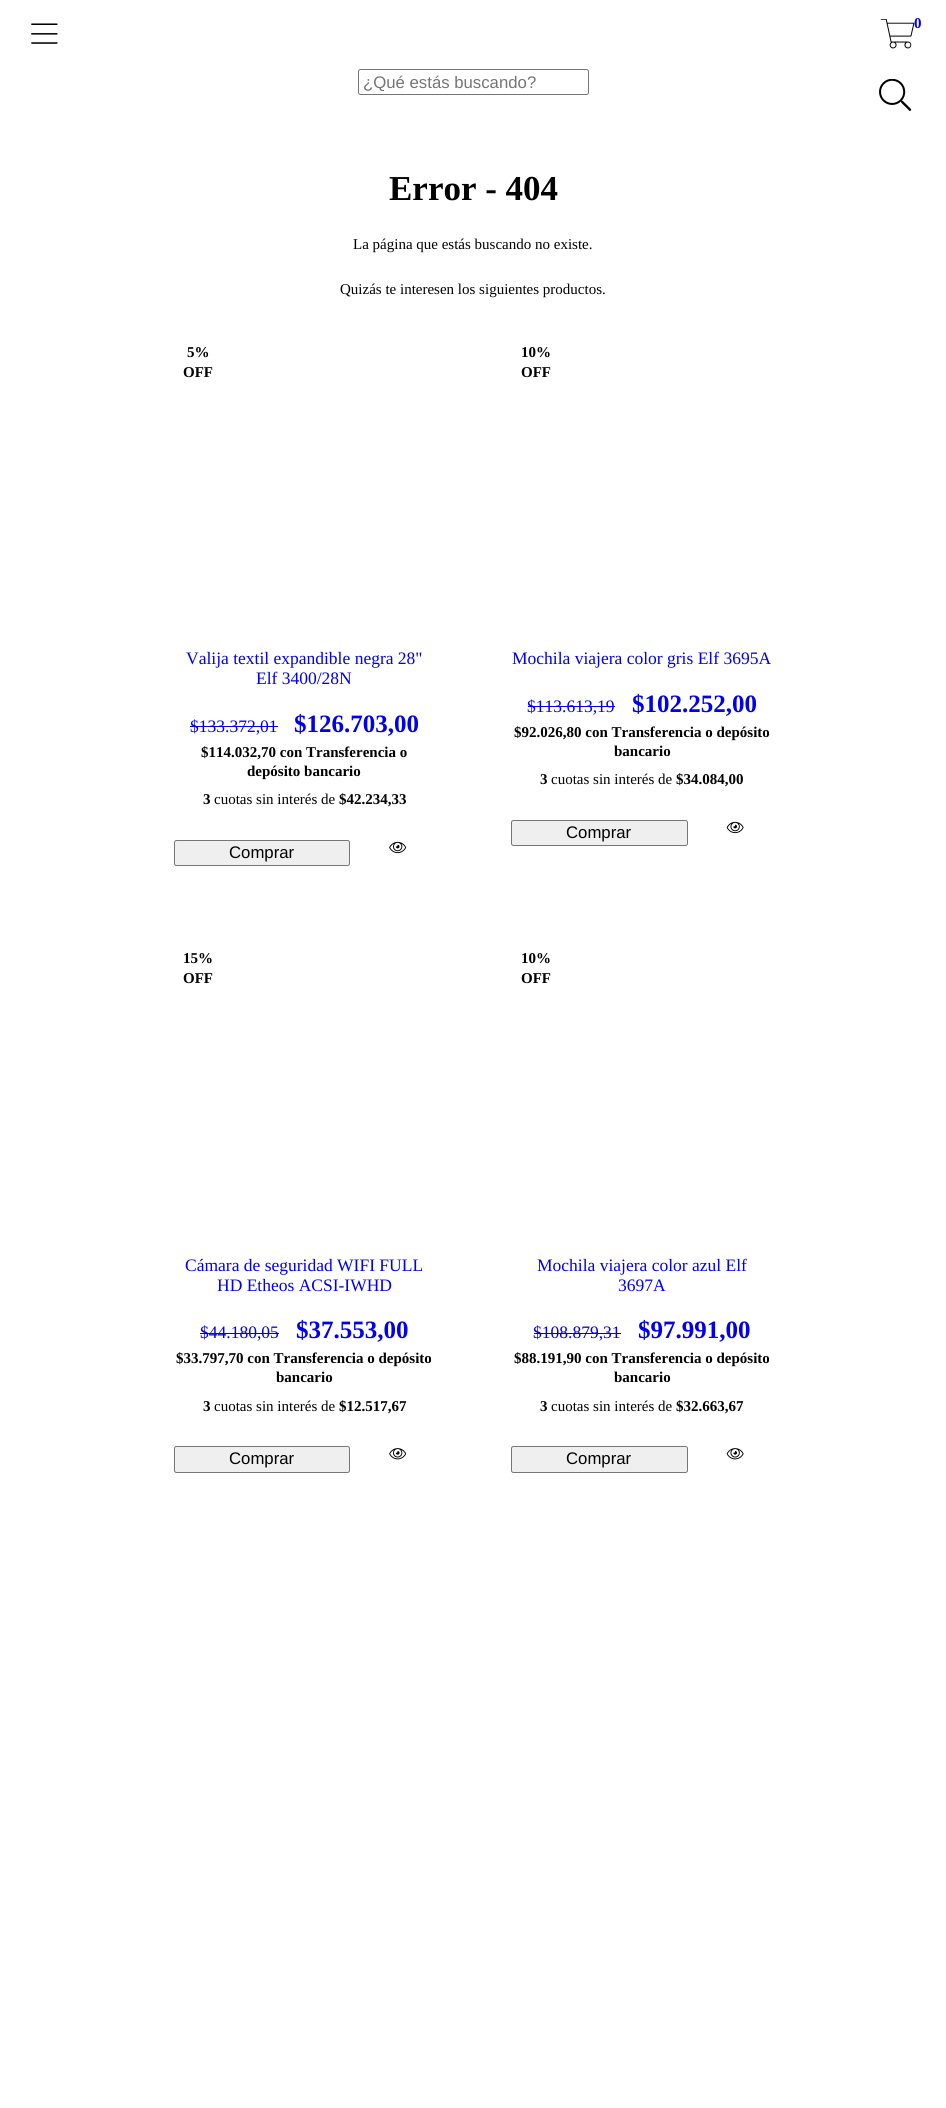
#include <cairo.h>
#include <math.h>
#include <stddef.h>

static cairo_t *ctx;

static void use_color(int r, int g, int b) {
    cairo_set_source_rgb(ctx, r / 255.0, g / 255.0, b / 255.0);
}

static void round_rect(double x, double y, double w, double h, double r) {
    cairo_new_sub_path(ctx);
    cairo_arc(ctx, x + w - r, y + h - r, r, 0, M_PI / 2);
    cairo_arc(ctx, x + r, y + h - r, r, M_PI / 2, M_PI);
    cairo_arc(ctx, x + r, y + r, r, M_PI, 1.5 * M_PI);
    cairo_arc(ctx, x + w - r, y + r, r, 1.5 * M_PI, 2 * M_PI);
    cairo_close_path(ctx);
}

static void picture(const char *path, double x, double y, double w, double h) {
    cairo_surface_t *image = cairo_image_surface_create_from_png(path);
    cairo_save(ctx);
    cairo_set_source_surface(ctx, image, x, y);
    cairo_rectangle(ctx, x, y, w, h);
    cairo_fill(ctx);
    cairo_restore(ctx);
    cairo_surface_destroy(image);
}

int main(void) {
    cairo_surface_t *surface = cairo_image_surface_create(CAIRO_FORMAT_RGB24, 946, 2108);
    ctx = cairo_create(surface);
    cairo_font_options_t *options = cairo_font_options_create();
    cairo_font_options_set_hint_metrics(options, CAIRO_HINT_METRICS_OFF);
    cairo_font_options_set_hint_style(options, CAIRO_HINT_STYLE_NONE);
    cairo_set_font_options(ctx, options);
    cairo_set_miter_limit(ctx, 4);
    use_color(255, 255, 255);
    cairo_paint(ctx);
    picture("img1.png", 31, 23, 27, 21);
    picture("img2.png", 880, 19, 35, 30);
    cairo_select_font_face(ctx, "Liberation Serif", CAIRO_FONT_SLANT_NORMAL, CAIRO_FONT_WEIGHT_BOLD);
    cairo_set_font_size(ctx, 15);
    use_color(0, 0, 238);
    cairo_move_to(ctx, 914, 28);
    cairo_show_text(ctx, "0");
    round_rect(358.5, 69.5, 230, 25, 2);
    use_color(118, 118, 118);
    cairo_set_line_width(ctx, 1);
    cairo_stroke(ctx);
    cairo_select_font_face(ctx, "Liberation Sans", CAIRO_FONT_SLANT_NORMAL, CAIRO_FONT_WEIGHT_NORMAL);
    cairo_set_font_size(ctx, 16.75);
    use_color(117, 117, 117);
    cairo_move_to(ctx, 363, 88);
    cairo_show_text(ctx, "¿Qué estás buscando?");
    picture("img3.png", 879, 79, 33, 32);
    cairo_select_font_face(ctx, "Liberation Serif", CAIRO_FONT_SLANT_NORMAL, CAIRO_FONT_WEIGHT_BOLD);
    cairo_set_font_size(ctx, 35);
    use_color(0, 0, 0);
    cairo_move_to(ctx, 389, 200);
    cairo_show_text(ctx, "Error - 404");
    cairo_select_font_face(ctx, "Liberation Serif", CAIRO_FONT_SLANT_NORMAL, CAIRO_FONT_WEIGHT_NORMAL);
    cairo_set_font_size(ctx, 15);
    cairo_move_to(ctx, 353, 249);
    cairo_show_text(ctx, "La página que estás buscando no existe.");
    cairo_move_to(ctx, 340, 294);
    cairo_show_text(ctx, "Quizás te interesen los siguientes productos.");
    cairo_select_font_face(ctx, "Liberation Serif", CAIRO_FONT_SLANT_NORMAL, CAIRO_FONT_WEIGHT_BOLD);
    cairo_move_to(ctx, 187, 357);
    cairo_show_text(ctx, "5%");
    cairo_move_to(ctx, 183, 377);
    cairo_show_text(ctx, "OFF");
    cairo_select_font_face(ctx, "Liberation Serif", CAIRO_FONT_SLANT_NORMAL, CAIRO_FONT_WEIGHT_NORMAL);
    cairo_set_font_size(ctx, 17.5);
    use_color(0, 0, 238);
    cairo_move_to(ctx, 186, 664);
    cairo_show_text(ctx, "Valija textil expandible negra 28\"");
    cairo_move_to(ctx, 256, 684);
    cairo_show_text(ctx, "Elf 3400/28N");
    cairo_move_to(ctx, 190, 732);
    cairo_show_text(ctx, "$133.372,01");
    cairo_rectangle(ctx, 190, 726, 88, 1);
    cairo_fill(ctx);
    cairo_select_font_face(ctx, "Liberation Serif", CAIRO_FONT_SLANT_NORMAL, CAIRO_FONT_WEIGHT_BOLD);
    cairo_set_font_size(ctx, 25);
    cairo_move_to(ctx, 294, 732);
    cairo_show_text(ctx, "$126.703,00");
    cairo_set_font_size(ctx, 15);
    use_color(0, 0, 0);
    cairo_move_to(ctx, 201, 757);
    cairo_show_text(ctx, "$114.032,70 con Transferencia o");
    cairo_move_to(ctx, 247, 776);
    cairo_show_text(ctx, "depósito bancario");
    cairo_move_to(ctx, 203, 804);
    cairo_show_text(ctx, "3");
    cairo_select_font_face(ctx, "Liberation Serif", CAIRO_FONT_SLANT_NORMAL, CAIRO_FONT_WEIGHT_NORMAL);
    cairo_move_to(ctx, 214, 804);
    cairo_show_text(ctx, "cuotas sin interés de");
    cairo_select_font_face(ctx, "Liberation Serif", CAIRO_FONT_SLANT_NORMAL, CAIRO_FONT_WEIGHT_BOLD);
    cairo_move_to(ctx, 339, 804);
    cairo_show_text(ctx, "$42.234,33");
    use_color(239, 239, 239);
    round_rect(174.5, 840.5, 175, 25, 2);
    cairo_fill_preserve(ctx);
    use_color(118, 118, 118);
    cairo_stroke(ctx);
    cairo_select_font_face(ctx, "Liberation Sans", CAIRO_FONT_SLANT_NORMAL, CAIRO_FONT_WEIGHT_NORMAL);
    cairo_set_font_size(ctx, 16.75);
    use_color(0, 0, 0);
    cairo_move_to(ctx, 229, 858);
    cairo_show_text(ctx, "Comprar");
    picture("img4.png", 389, 841, 18, 13);
    cairo_select_font_face(ctx, "Liberation Serif", CAIRO_FONT_SLANT_NORMAL, CAIRO_FONT_WEIGHT_BOLD);
    cairo_set_font_size(ctx, 15);
    cairo_move_to(ctx, 521, 357);
    cairo_show_text(ctx, "10%");
    cairo_move_to(ctx, 521, 377);
    cairo_show_text(ctx, "OFF");
    cairo_select_font_face(ctx, "Liberation Serif", CAIRO_FONT_SLANT_NORMAL, CAIRO_FONT_WEIGHT_NORMAL);
    cairo_set_font_size(ctx, 17.5);
    use_color(0, 0, 238);
    cairo_move_to(ctx, 512, 664);
    cairo_show_text(ctx, "Mochila viajera color gris Elf 3695A");
    cairo_move_to(ctx, 527, 712);
    cairo_show_text(ctx, "$113.613,19");
    cairo_rectangle(ctx, 528, 706, 87, 1);
    cairo_fill(ctx);
    cairo_select_font_face(ctx, "Liberation Serif", CAIRO_FONT_SLANT_NORMAL, CAIRO_FONT_WEIGHT_BOLD);
    cairo_set_font_size(ctx, 25);
    cairo_move_to(ctx, 632, 712);
    cairo_show_text(ctx, "$102.252,00");
    cairo_set_font_size(ctx, 15);
    use_color(0, 0, 0);
    cairo_move_to(ctx, 514, 737);
    cairo_show_text(ctx, "$92.026,80 con Transferencia o depósito");
    cairo_move_to(ctx, 614, 756);
    cairo_show_text(ctx, "bancario");
    cairo_move_to(ctx, 540, 784);
    cairo_show_text(ctx, "3");
    cairo_select_font_face(ctx, "Liberation Serif", CAIRO_FONT_SLANT_NORMAL, CAIRO_FONT_WEIGHT_NORMAL);
    cairo_move_to(ctx, 551, 784);
    cairo_show_text(ctx, "cuotas sin interés de");
    cairo_select_font_face(ctx, "Liberation Serif", CAIRO_FONT_SLANT_NORMAL, CAIRO_FONT_WEIGHT_BOLD);
    cairo_move_to(ctx, 676, 784);
    cairo_show_text(ctx, "$34.084,00");
    use_color(239, 239, 239);
    round_rect(511.5, 820.5, 176, 25, 2);
    cairo_fill_preserve(ctx);
    use_color(118, 118, 118);
    cairo_stroke(ctx);
    cairo_select_font_face(ctx, "Liberation Sans", CAIRO_FONT_SLANT_NORMAL, CAIRO_FONT_WEIGHT_NORMAL);
    cairo_set_font_size(ctx, 16.75);
    use_color(0, 0, 0);
    cairo_move_to(ctx, 566, 838);
    cairo_show_text(ctx, "Comprar");
    picture("img5.png", 726, 821, 18, 13);
    cairo_select_font_face(ctx, "Liberation Serif", CAIRO_FONT_SLANT_NORMAL, CAIRO_FONT_WEIGHT_BOLD);
    cairo_set_font_size(ctx, 15);
    cairo_move_to(ctx, 183, 963);
    cairo_show_text(ctx, "15%");
    cairo_move_to(ctx, 183, 983);
    cairo_show_text(ctx, "OFF");
    cairo_select_font_face(ctx, "Liberation Serif", CAIRO_FONT_SLANT_NORMAL, CAIRO_FONT_WEIGHT_NORMAL);
    cairo_set_font_size(ctx, 17.5);
    use_color(0, 0, 238);
    cairo_move_to(ctx, 185, 1271);
    cairo_show_text(ctx, "Cámara de seguridad WIFI FULL");
    cairo_move_to(ctx, 217, 1291);
    cairo_show_text(ctx, "HD Etheos ACSI-IWHD");
    cairo_move_to(ctx, 200, 1338);
    cairo_show_text(ctx, "$44.180,05");
    cairo_rectangle(ctx, 200, 1333, 79, 1);
    cairo_fill(ctx);
    cairo_select_font_face(ctx, "Liberation Serif", CAIRO_FONT_SLANT_NORMAL, CAIRO_FONT_WEIGHT_BOLD);
    cairo_set_font_size(ctx, 25);
    cairo_move_to(ctx, 296, 1338);
    cairo_show_text(ctx, "$37.553,00");
    cairo_set_font_size(ctx, 15);
    use_color(0, 0, 0);
    cairo_move_to(ctx, 176, 1363);
    cairo_show_text(ctx, "$33.797,70 con Transferencia o depósito");
    cairo_move_to(ctx, 276, 1382);
    cairo_show_text(ctx, "bancario");
    cairo_move_to(ctx, 203, 1411);
    cairo_show_text(ctx, "3");
    cairo_select_font_face(ctx, "Liberation Serif", CAIRO_FONT_SLANT_NORMAL, CAIRO_FONT_WEIGHT_NORMAL);
    cairo_move_to(ctx, 214, 1411);
    cairo_show_text(ctx, "cuotas sin interés de");
    cairo_select_font_face(ctx, "Liberation Serif", CAIRO_FONT_SLANT_NORMAL, CAIRO_FONT_WEIGHT_BOLD);
    cairo_move_to(ctx, 339, 1411);
    cairo_show_text(ctx, "$12.517,67");
    use_color(239, 239, 239);
    round_rect(174.5, 1446.5, 175, 26, 2);
    cairo_fill_preserve(ctx);
    use_color(118, 118, 118);
    cairo_stroke(ctx);
    cairo_select_font_face(ctx, "Liberation Sans", CAIRO_FONT_SLANT_NORMAL, CAIRO_FONT_WEIGHT_NORMAL);
    cairo_set_font_size(ctx, 16.75);
    use_color(0, 0, 0);
    cairo_move_to(ctx, 229, 1464);
    cairo_show_text(ctx, "Comprar");
    picture("img6.png", 389, 1448, 18, 12);
    cairo_select_font_face(ctx, "Liberation Serif", CAIRO_FONT_SLANT_NORMAL, CAIRO_FONT_WEIGHT_BOLD);
    cairo_set_font_size(ctx, 15);
    cairo_move_to(ctx, 521, 963);
    cairo_show_text(ctx, "10%");
    cairo_move_to(ctx, 521, 983);
    cairo_show_text(ctx, "OFF");
    cairo_select_font_face(ctx, "Liberation Serif", CAIRO_FONT_SLANT_NORMAL, CAIRO_FONT_WEIGHT_NORMAL);
    cairo_set_font_size(ctx, 17.5);
    use_color(0, 0, 238);
    cairo_move_to(ctx, 537, 1271);
    cairo_show_text(ctx, "Mochila viajera color azul Elf");
    cairo_move_to(ctx, 618, 1291);
    cairo_show_text(ctx, "3697A");
    cairo_move_to(ctx, 533, 1338);
    cairo_show_text(ctx, "$108.879,31");
    cairo_rectangle(ctx, 534, 1333, 87, 1);
    cairo_fill(ctx);
    cairo_select_font_face(ctx, "Liberation Serif", CAIRO_FONT_SLANT_NORMAL, CAIRO_FONT_WEIGHT_BOLD);
    cairo_set_font_size(ctx, 25);
    cairo_move_to(ctx, 638, 1338);
    cairo_show_text(ctx, "$97.991,00");
    cairo_set_font_size(ctx, 15);
    use_color(0, 0, 0);
    cairo_move_to(ctx, 514, 1363);
    cairo_show_text(ctx, "$88.191,90 con Transferencia o depósito");
    cairo_move_to(ctx, 614, 1382);
    cairo_show_text(ctx, "bancario");
    cairo_move_to(ctx, 540, 1411);
    cairo_show_text(ctx, "3");
    cairo_select_font_face(ctx, "Liberation Serif", CAIRO_FONT_SLANT_NORMAL, CAIRO_FONT_WEIGHT_NORMAL);
    cairo_move_to(ctx, 551, 1411);
    cairo_show_text(ctx, "cuotas sin interés de");
    cairo_select_font_face(ctx, "Liberation Serif", CAIRO_FONT_SLANT_NORMAL, CAIRO_FONT_WEIGHT_BOLD);
    cairo_move_to(ctx, 676, 1411);
    cairo_show_text(ctx, "$32.663,67");
    use_color(239, 239, 239);
    round_rect(511.5, 1446.5, 176, 26, 2);
    cairo_fill_preserve(ctx);
    use_color(118, 118, 118);
    cairo_stroke(ctx);
    cairo_select_font_face(ctx, "Liberation Sans", CAIRO_FONT_SLANT_NORMAL, CAIRO_FONT_WEIGHT_NORMAL);
    cairo_set_font_size(ctx, 16.75);
    use_color(0, 0, 0);
    cairo_move_to(ctx, 566, 1464);
    cairo_show_text(ctx, "Comprar");
    picture("img7.png", 726, 1448, 18, 12);
    cairo_surface_write_to_png(surface, "result.png");
    cairo_font_options_destroy(options);
    cairo_destroy(ctx);
    cairo_surface_destroy(surface);
    return 0;
}
